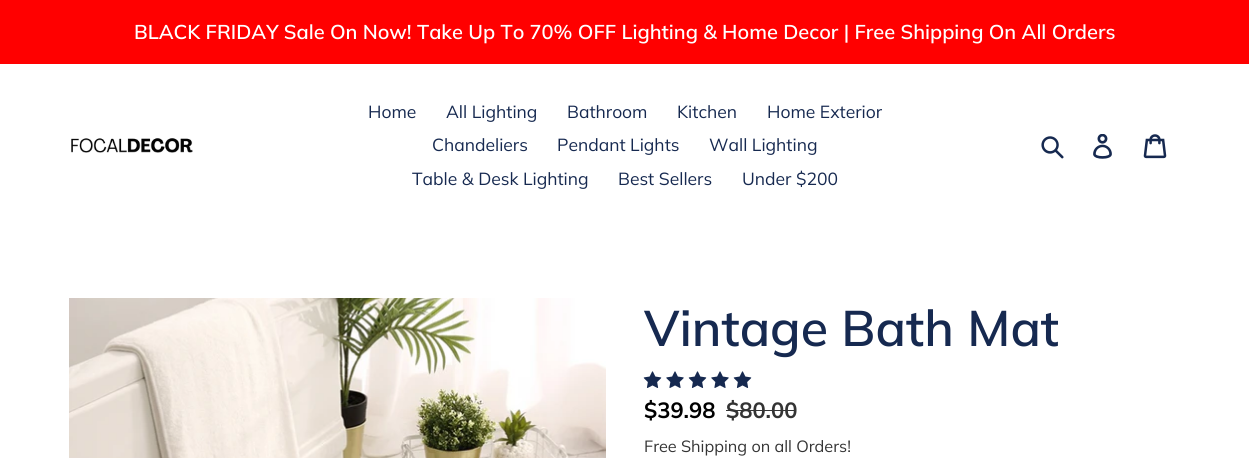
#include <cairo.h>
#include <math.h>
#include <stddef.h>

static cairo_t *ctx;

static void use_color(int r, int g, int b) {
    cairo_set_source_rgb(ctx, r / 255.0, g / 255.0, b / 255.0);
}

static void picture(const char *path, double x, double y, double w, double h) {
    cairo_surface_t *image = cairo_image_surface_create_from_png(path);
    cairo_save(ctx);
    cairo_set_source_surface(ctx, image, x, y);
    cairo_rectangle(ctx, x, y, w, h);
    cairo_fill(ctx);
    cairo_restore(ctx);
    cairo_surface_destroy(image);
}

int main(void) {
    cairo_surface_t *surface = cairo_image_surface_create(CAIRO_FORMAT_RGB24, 1249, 458);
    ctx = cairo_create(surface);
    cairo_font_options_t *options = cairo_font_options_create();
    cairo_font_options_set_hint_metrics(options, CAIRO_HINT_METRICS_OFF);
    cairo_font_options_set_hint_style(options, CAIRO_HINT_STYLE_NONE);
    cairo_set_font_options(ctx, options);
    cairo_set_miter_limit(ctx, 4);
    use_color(255, 255, 255);
    cairo_paint(ctx);
    use_color(255, 0, 0);
    cairo_rectangle(ctx, 0, 0, 1249, 64);
    cairo_fill(ctx);
    cairo_select_font_face(ctx, "Muli SemiBold", CAIRO_FONT_SLANT_NORMAL, CAIRO_FONT_WEIGHT_NORMAL);
    cairo_set_font_size(ctx, 20);
    use_color(255, 255, 255);
    cairo_move_to(ctx, 134, 39);
    cairo_show_text(ctx, "BLACK FRIDAY Sale On Now! Take Up To 70% OFF Lighting & Home Decor | Free Shipping On All Orders");
    picture("img1.png", 71, 138, 122, 15);
    cairo_select_font_face(ctx, "Muli", CAIRO_FONT_SLANT_NORMAL, CAIRO_FONT_WEIGHT_NORMAL);
    cairo_set_font_size(ctx, 17.5);
    use_color(22, 41, 80);
    cairo_move_to(ctx, 368, 118);
    cairo_show_text(ctx, "Home");
    cairo_move_to(ctx, 446, 118);
    cairo_show_text(ctx, "All Lighting");
    cairo_move_to(ctx, 567, 118);
    cairo_show_text(ctx, "Bathroom");
    cairo_move_to(ctx, 677, 118);
    cairo_show_text(ctx, "Kitchen");
    cairo_move_to(ctx, 767, 118);
    cairo_show_text(ctx, "Home Exterior");
    cairo_move_to(ctx, 432, 151);
    cairo_show_text(ctx, "Chandeliers");
    cairo_move_to(ctx, 557, 151);
    cairo_show_text(ctx, "Pendant Lights");
    cairo_move_to(ctx, 709, 151);
    cairo_show_text(ctx, "Wall Lighting");
    cairo_move_to(ctx, 412, 185);
    cairo_show_text(ctx, "Table & Desk Lighting");
    cairo_move_to(ctx, 618, 185);
    cairo_show_text(ctx, "Best Sellers");
    cairo_move_to(ctx, 742, 185);
    cairo_show_text(ctx, "Under $200");
    picture("img2.png", 1041, 136, 23, 23);
    picture("img3.png", 1093, 134, 19, 25);
    picture("img4.png", 1143, 134, 24, 25);
    picture("img5.png", 69, 298, 537, 160);
    cairo_select_font_face(ctx, "Muli SemiBold", CAIRO_FONT_SLANT_NORMAL, CAIRO_FONT_WEIGHT_NORMAL);
    cairo_set_font_size(ctx, 50);
    cairo_move_to(ctx, 644, 346);
    cairo_show_text(ctx, "Vintage Bath Mat");
    picture("img6.png", 643, 371, 19, 17);
    picture("img7.png", 666, 371, 18, 17);
    picture("img6.png", 688, 371, 19, 17);
    picture("img7.png", 711, 371, 18, 17);
    picture("img6.png", 733, 371, 19, 17);
    cairo_select_font_face(ctx, "Muli", CAIRO_FONT_SLANT_NORMAL, CAIRO_FONT_WEIGHT_BOLD);
    cairo_set_font_size(ctx, 22);
    use_color(0, 0, 0);
    cairo_move_to(ctx, 644, 418);
    cairo_show_text(ctx, "$39.98");
    use_color(52, 52, 52);
    cairo_move_to(ctx, 726, 418);
    cairo_show_text(ctx, "$80.00");
    cairo_rectangle(ctx, 726, 410, 70, 1);
    cairo_fill(ctx);
    cairo_select_font_face(ctx, "Muli", CAIRO_FONT_SLANT_NORMAL, CAIRO_FONT_WEIGHT_NORMAL);
    cairo_set_font_size(ctx, 16.25);
    cairo_move_to(ctx, 644, 452);
    cairo_show_text(ctx, "Free Shipping on all Orders!");
    cairo_surface_write_to_png(surface, "result.png");
    cairo_font_options_destroy(options);
    cairo_destroy(ctx);
    cairo_surface_destroy(surface);
    return 0;
}
